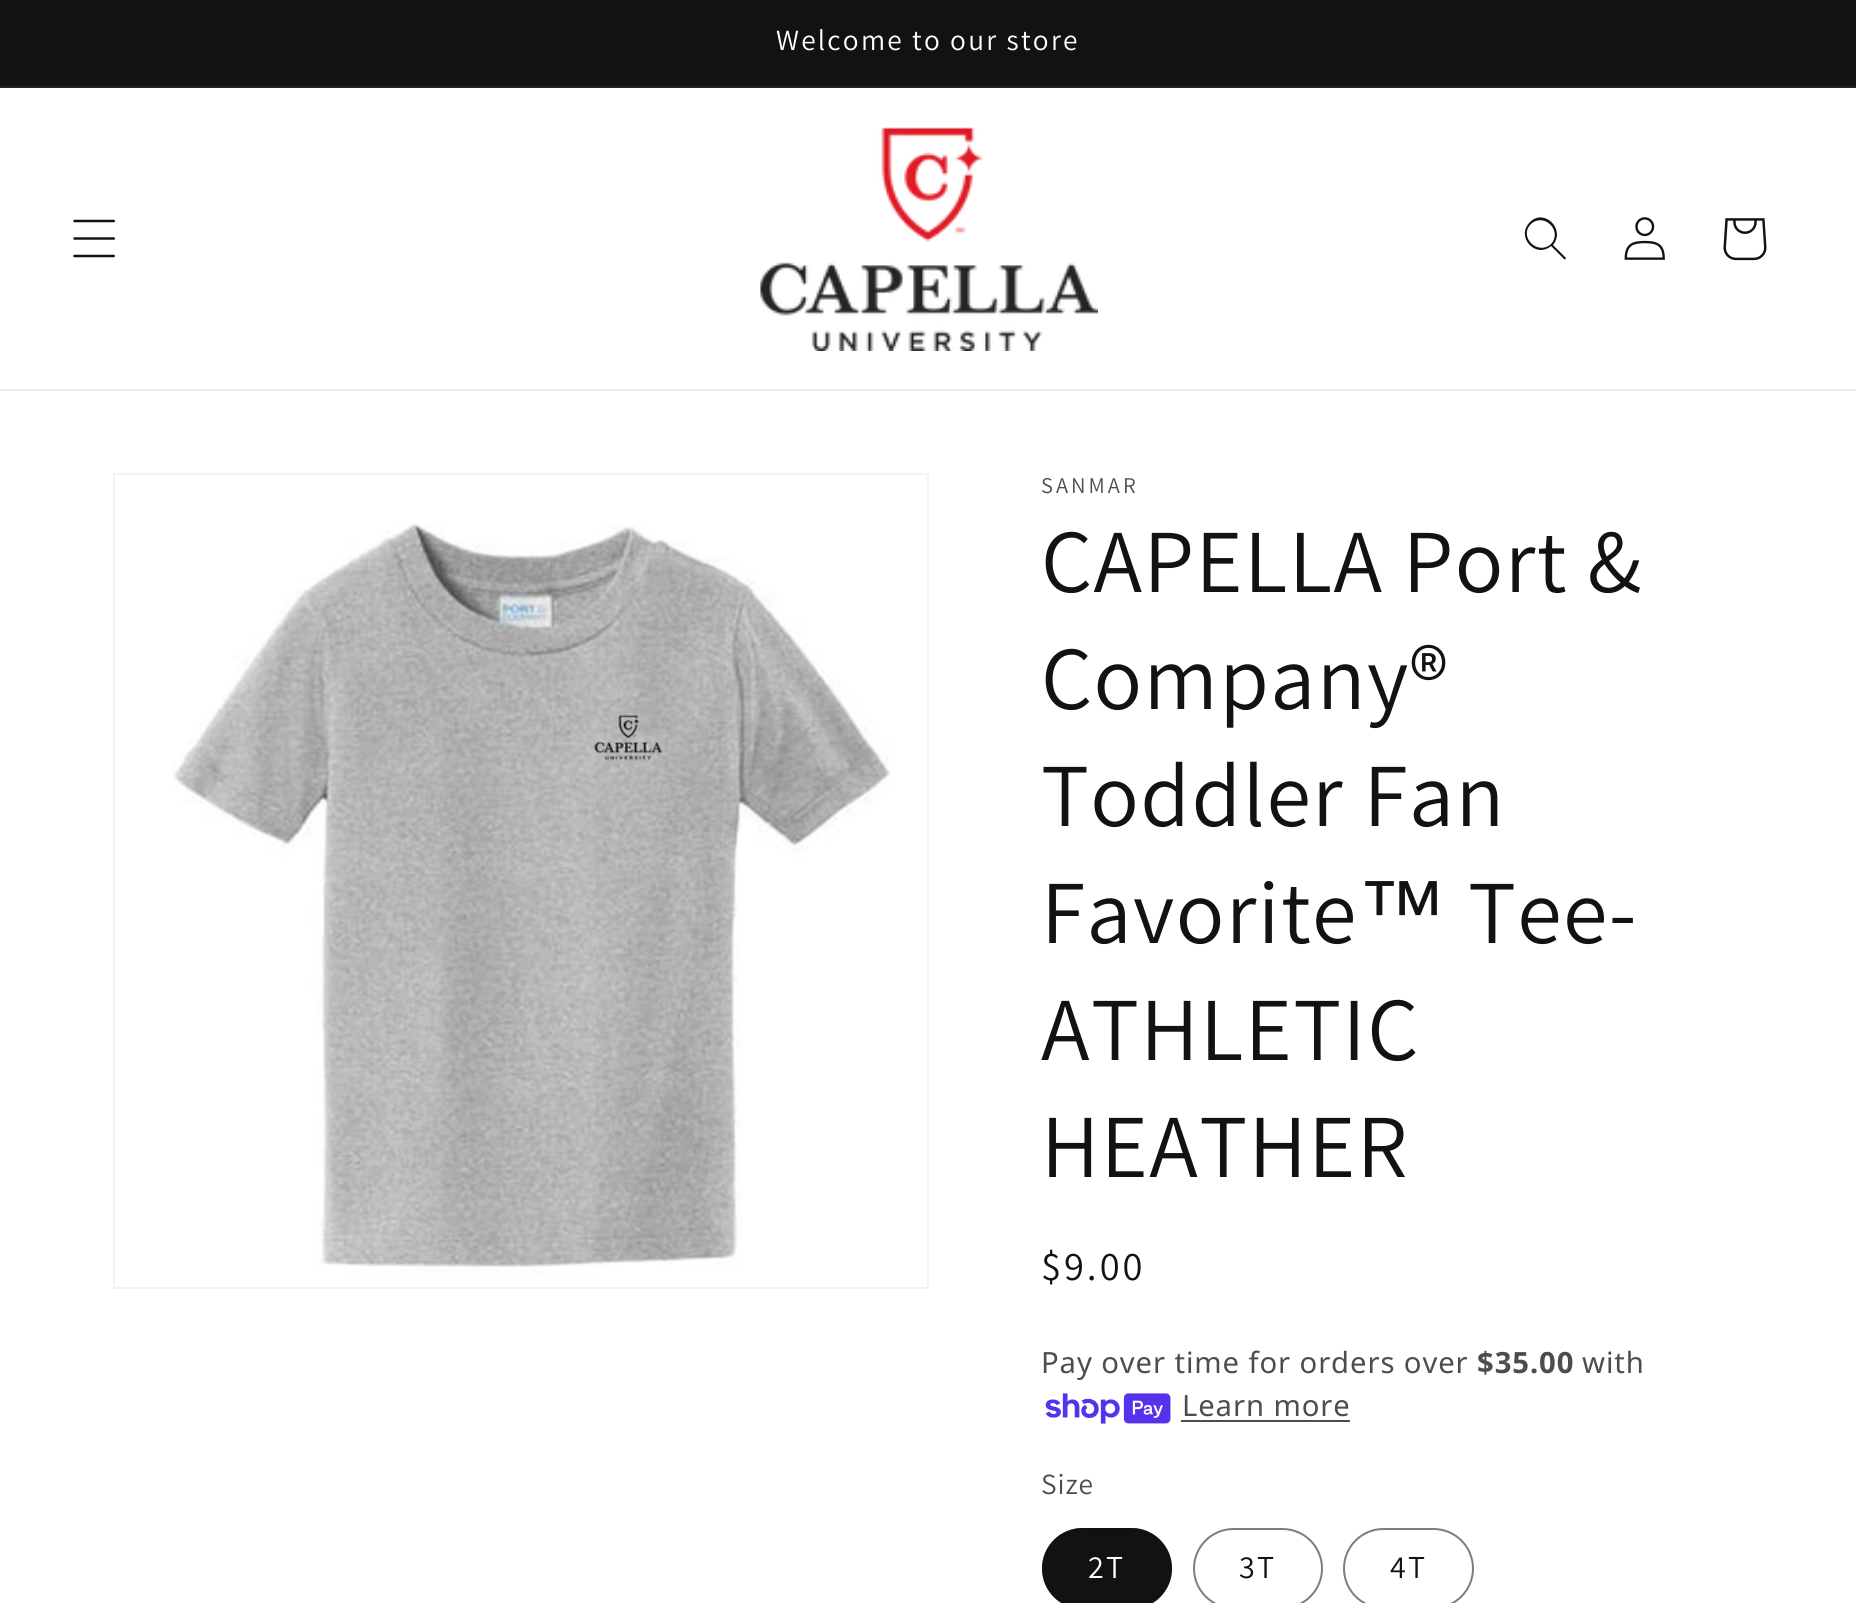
#include <cairo.h>
#include <math.h>
#include <stddef.h>

static cairo_t *ctx;

static void use_color(int r, int g, int b) {
    cairo_set_source_rgb(ctx, r / 255.0, g / 255.0, b / 255.0);
}

static void spaced_text(double x, double y, const char *s, double letter, double word) {
    cairo_move_to(ctx, x, y);
    while (*s) {
        char ch[5] = {0};
        int n = 0;
        do ch[n++] = *s++; while ((*s & 0xC0) == 0x80);
        cairo_show_text(ctx, ch);
        cairo_rel_move_to(ctx, letter + word * (*ch == ' '), 0);
    }
}

static void round_rect(double x, double y, double w, double h, double r) {
    cairo_new_sub_path(ctx);
    cairo_arc(ctx, x + w - r, y + h - r, r, 0, M_PI / 2);
    cairo_arc(ctx, x + r, y + h - r, r, M_PI / 2, M_PI);
    cairo_arc(ctx, x + r, y + r, r, M_PI, 1.5 * M_PI);
    cairo_arc(ctx, x + w - r, y + r, r, 1.5 * M_PI, 2 * M_PI);
    cairo_close_path(ctx);
}

static void picture(const char *path, double x, double y, double w, double h) {
    cairo_surface_t *image = cairo_image_surface_create_from_png(path);
    cairo_save(ctx);
    cairo_set_source_surface(ctx, image, x, y);
    cairo_rectangle(ctx, x, y, w, h);
    cairo_fill(ctx);
    cairo_restore(ctx);
    cairo_surface_destroy(image);
}

int main(void) {
    cairo_surface_t *surface = cairo_image_surface_create(CAIRO_FORMAT_RGB24, 1856, 1603);
    ctx = cairo_create(surface);
    cairo_font_options_t *options = cairo_font_options_create();
    cairo_font_options_set_hint_metrics(options, CAIRO_HINT_METRICS_OFF);
    cairo_font_options_set_hint_style(options, CAIRO_HINT_STYLE_NONE);
    cairo_set_font_options(ctx, options);
    cairo_set_miter_limit(ctx, 4);
    use_color(255, 255, 255);
    cairo_paint(ctx);
    use_color(18, 18, 18);
    cairo_rectangle(ctx, 0, 0, 1856, 86);
    cairo_fill(ctx);
    use_color(37, 37, 37);
    cairo_rectangle(ctx, 0, 86, 1856, 2);
    cairo_fill(ctx);
    cairo_select_font_face(ctx, "Assistant", CAIRO_FONT_SLANT_NORMAL, CAIRO_FONT_WEIGHT_NORMAL);
    cairo_set_font_size(ctx, 29.25);
    use_color(255, 255, 255);
    spaced_text(776, 50, "Welcome to our store", 2.25, 0);
    use_color(236, 236, 236);
    cairo_rectangle(ctx, 0, 389, 1856, 2);
    cairo_fill(ctx);
    picture("img1.png", 73, 219, 42, 39);
    picture("img2.png", 760, 127, 338, 224);
    use_color(18, 18, 18);
    cairo_set_fill_rule(ctx, CAIRO_FILL_RULE_EVEN_ODD);
    cairo_new_path(ctx);
    cairo_move_to(ctx, 1551, 244);
    cairo_curve_to(ctx, 1538, 256, 1518, 237, 1531, 224);
    cairo_curve_to(ctx, 1544, 212, 1563, 231, 1551, 244);
    cairo_move_to(ctx, 1551, 246);
    cairo_curve_to(ctx, 1536, 259, 1515, 237, 1530, 222);
    cairo_curve_to(ctx, 1544, 208, 1566, 229, 1553, 245);
    cairo_line_to(ctx, 1566, 258);
    cairo_curve_to(ctx, 1566, 259, 1565, 260, 1564, 259);
    cairo_close_path(ctx);
    cairo_fill(ctx);
    picture("img3.png", 1624, 217, 41, 43);
    picture("img4.png", 1723, 218, 44, 43);
    cairo_rectangle(ctx, 114, 474, 814, 814);
    use_color(243, 243, 243);
    cairo_stroke(ctx);
    picture("img5.png", 173, 523, 717, 755);
    cairo_set_font_size(ctx, 22.5);
    use_color(77, 77, 77);
    spaced_text(1041, 493, "SANMAR", 3, 0);
    cairo_set_font_size(ctx, 90);
    use_color(18, 18, 18);
    spaced_text(1041, 592, "CAPELLA Port &", 1.4, 0);
    spaced_text(1041, 709, "Company®", 1.4, 0);
    spaced_text(1041, 826, "Toddler Fan", 1.4, 0);
    spaced_text(1041, 943, "Favorite", 1.4, 0);
    cairo_select_font_face(ctx, "Liberation Sans", CAIRO_FONT_SLANT_NORMAL, CAIRO_FONT_WEIGHT_NORMAL);
    spaced_text(1357, 943, "™", 1.4, 0);
    cairo_select_font_face(ctx, "Assistant", CAIRO_FONT_SLANT_NORMAL, CAIRO_FONT_WEIGHT_NORMAL);
    spaced_text(1468, 943, "Tee-", 1.4, 0);
    spaced_text(1041, 1060, "ATHLETIC", 1.4, 0);
    spaced_text(1041, 1177, "HEATHER", 1.4, 0);
    cairo_set_font_size(ctx, 40.5);
    spaced_text(1041, 1280, "$9.00", 3, 0);
    cairo_select_font_face(ctx, "Noto Sans", CAIRO_FONT_SLANT_NORMAL, CAIRO_FONT_WEIGHT_NORMAL);
    cairo_set_font_size(ctx, 29.25);
    use_color(77, 77, 77);
    spaced_text(1041, 1373, "Pay over time for orders over", 0.9, 0);
    cairo_select_font_face(ctx, "Noto Sans", CAIRO_FONT_SLANT_NORMAL, CAIRO_FONT_WEIGHT_BOLD);
    spaced_text(1477, 1373, "$35.00", 0.9, 0);
    cairo_select_font_face(ctx, "Noto Sans", CAIRO_FONT_SLANT_NORMAL, CAIRO_FONT_WEIGHT_NORMAL);
    spaced_text(1582, 1373, "with", 0.9, 0);
    picture("img6.png", 1045, 1393, 126, 31);
    spaced_text(1182, 1416, "Learn more", 0.9, 0);
    cairo_rectangle(ctx, 1181, 1420, 169, 2);
    cairo_fill(ctx);
    cairo_select_font_face(ctx, "Assistant", CAIRO_FONT_SLANT_NORMAL, CAIRO_FONT_WEIGHT_NORMAL);
    spaced_text(1041, 1494, "Size", 0.9, 0);
    use_color(18, 18, 18);
    round_rect(1042, 1528, 130, 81, 40.5);
    cairo_fill(ctx);
    round_rect(1043, 1529, 128, 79, 39.5);
    cairo_set_source_rgba(ctx, 0.071, 0.071, 0.071, 0.55);
    cairo_stroke(ctx);
    cairo_set_font_size(ctx, 32);
    use_color(255, 255, 255);
    spaced_text(1088, 1578, "2T", 2.25, 0);
    round_rect(1194, 1529, 128, 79, 39.5);
    use_color(125, 125, 125);
    cairo_stroke(ctx);
    use_color(18, 18, 18);
    spaced_text(1239, 1578, "3T", 2.25, 0);
    round_rect(1344, 1529, 129, 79, 39.5);
    use_color(125, 125, 125);
    cairo_stroke(ctx);
    use_color(18, 18, 18);
    spaced_text(1390, 1578, "4T", 2.25, 0);
    cairo_surface_write_to_png(surface, "result.png");
    cairo_font_options_destroy(options);
    cairo_destroy(ctx);
    cairo_surface_destroy(surface);
    return 0;
}
